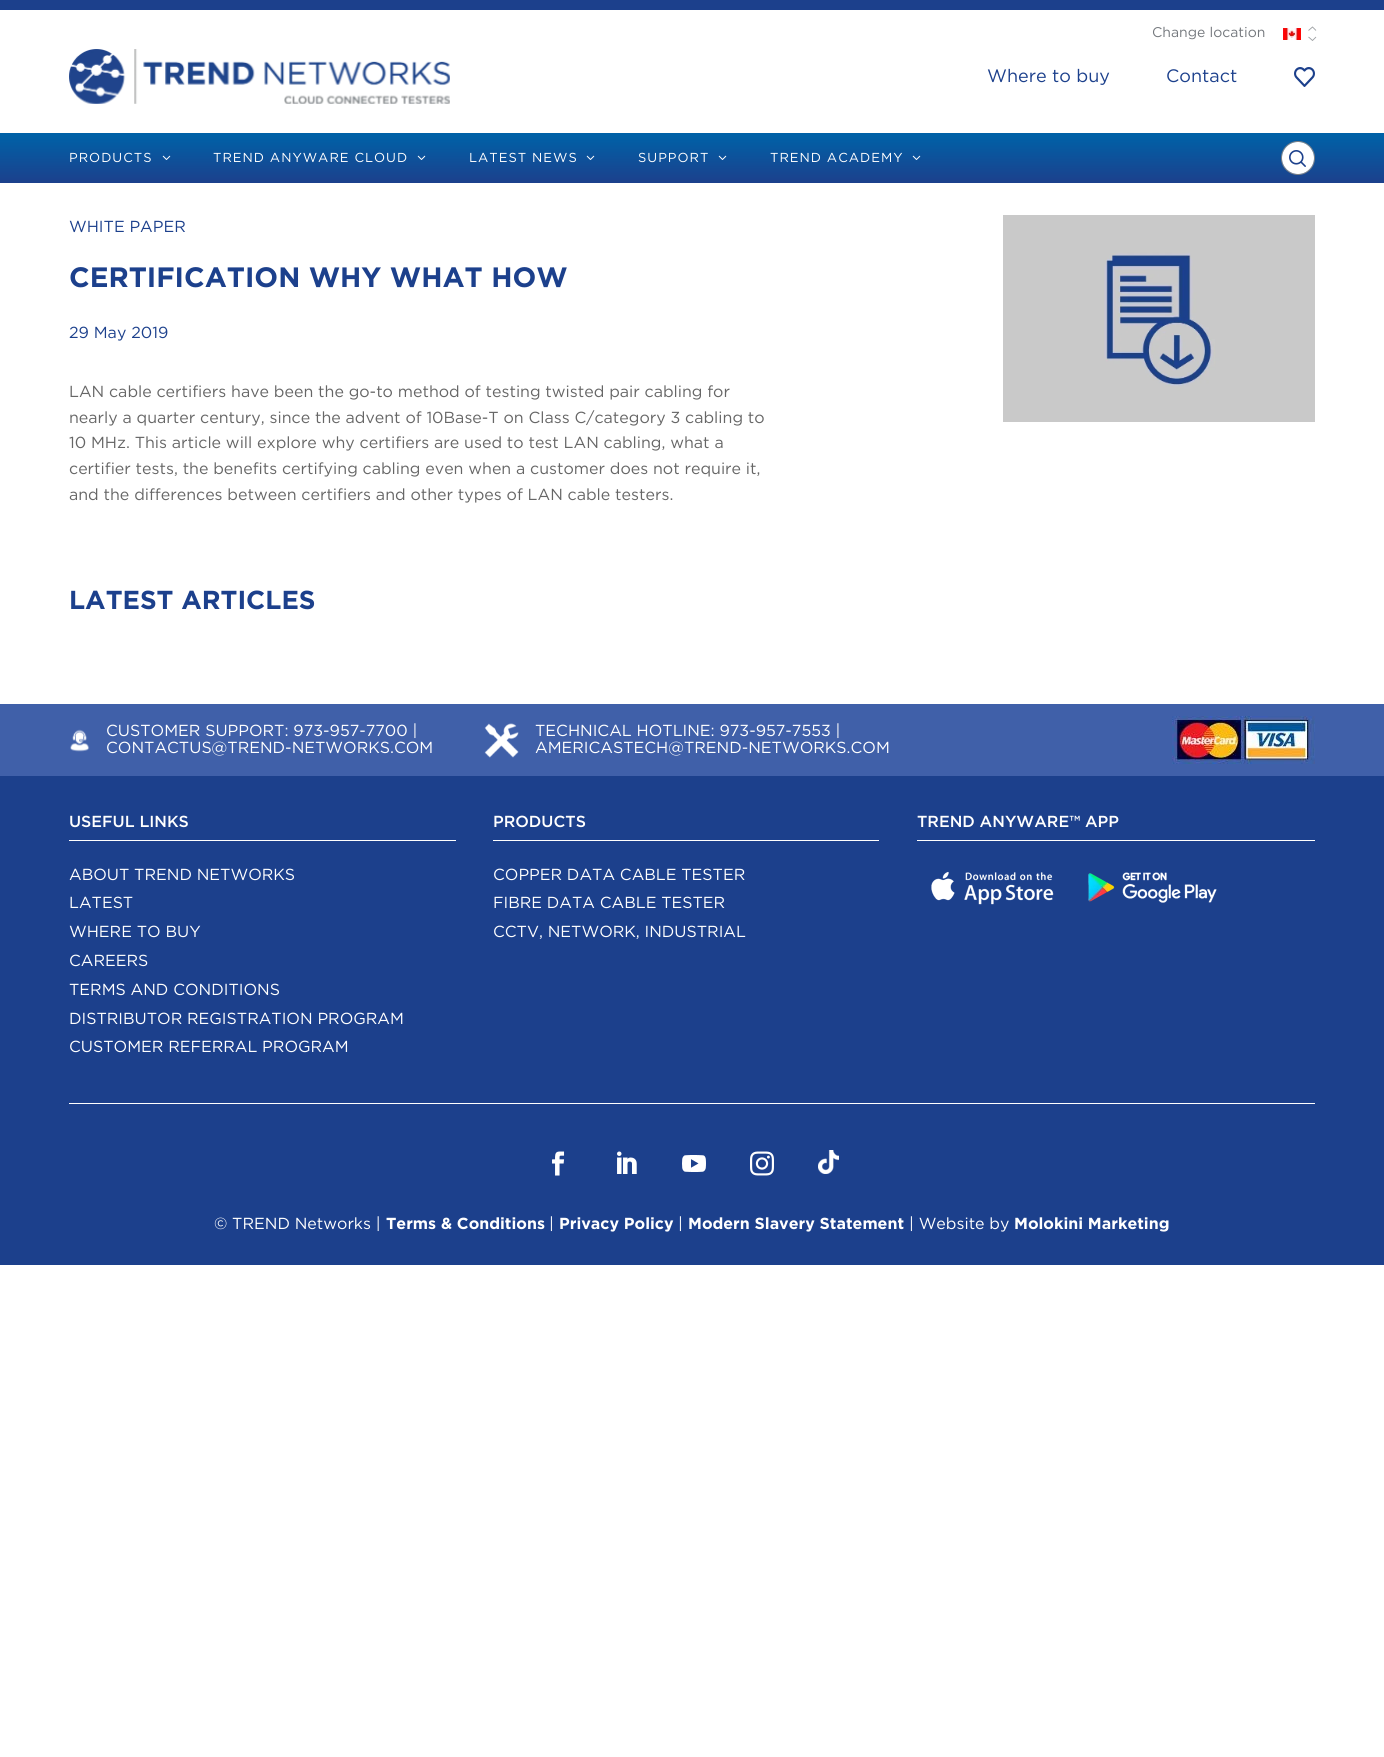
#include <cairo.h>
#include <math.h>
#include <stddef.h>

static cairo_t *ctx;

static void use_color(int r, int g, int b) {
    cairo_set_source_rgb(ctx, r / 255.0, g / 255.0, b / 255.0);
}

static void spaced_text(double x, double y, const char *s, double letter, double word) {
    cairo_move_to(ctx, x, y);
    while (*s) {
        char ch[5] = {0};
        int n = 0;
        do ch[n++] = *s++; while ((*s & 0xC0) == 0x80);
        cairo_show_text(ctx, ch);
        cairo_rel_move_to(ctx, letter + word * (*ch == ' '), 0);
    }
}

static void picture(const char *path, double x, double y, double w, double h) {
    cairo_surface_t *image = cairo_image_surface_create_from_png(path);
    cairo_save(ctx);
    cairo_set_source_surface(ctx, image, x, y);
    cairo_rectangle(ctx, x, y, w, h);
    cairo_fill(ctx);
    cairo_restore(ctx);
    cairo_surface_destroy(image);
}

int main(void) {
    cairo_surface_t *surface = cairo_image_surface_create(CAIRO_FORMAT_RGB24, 1384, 1757);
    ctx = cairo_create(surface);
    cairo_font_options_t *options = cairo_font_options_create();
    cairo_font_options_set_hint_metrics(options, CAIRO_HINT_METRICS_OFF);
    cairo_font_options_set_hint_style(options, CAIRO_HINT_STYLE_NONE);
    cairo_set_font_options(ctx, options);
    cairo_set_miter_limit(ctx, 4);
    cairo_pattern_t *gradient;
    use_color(255, 255, 255);
    cairo_paint(ctx);
    use_color(28, 64, 140);
    cairo_rectangle(ctx, 0, 0, 1384, 10);
    cairo_fill(ctx);
    cairo_select_font_face(ctx, "Gotham", CAIRO_FONT_SLANT_NORMAL, CAIRO_FONT_WEIGHT_NORMAL);
    cairo_set_font_size(ctx, 14);
    use_color(116, 120, 125);
    cairo_move_to(ctx, 1152, 37);
    cairo_show_text(ctx, "Change location");
    picture("img1.png", 1283, 28, 18, 12);
    cairo_new_path(ctx);
    cairo_move_to(ctx, 1308.5, 30.5);
    cairo_line_to(ctx, 1312.5, 27);
    cairo_line_to(ctx, 1316, 30.5);
    cairo_move_to(ctx, 1316, 37);
    cairo_line_to(ctx, 1312.5, 40.5);
    cairo_line_to(ctx, 1308.5, 37);
    use_color(158, 161, 164);
    cairo_set_line_width(ctx, 0.9);
    cairo_stroke(ctx);
    picture("img2.png", 69, 49, 381, 55);
    cairo_set_font_size(ctx, 18);
    use_color(28, 64, 140);
    cairo_move_to(ctx, 987, 82);
    cairo_show_text(ctx, "Where to buy");
    cairo_move_to(ctx, 1166, 82);
    cairo_show_text(ctx, "Contact");
    picture("img3.png", 1294, 67, 21, 20);
    gradient = cairo_pattern_create_linear(692, 183, 692, 133);
    cairo_pattern_add_color_stop_rgba(gradient, 0, 0.11, 0.251, 0.549, 1);
    cairo_pattern_add_color_stop_rgba(gradient, 0.95, 0, 0.38, 0.655, 1);
    cairo_set_source(ctx, gradient);
    cairo_pattern_destroy(gradient);
    cairo_rectangle(ctx, 0, 133, 1384, 50);
    cairo_fill(ctx);
    cairo_set_font_size(ctx, 13);
    use_color(255, 255, 255);
    spaced_text(69, 162, "PRODUCTS", 1, 0);
    picture("img4.png", 162, 155, 9, 5);
    spaced_text(213, 162, "TREND ANYWARE CLOUD", 1, 0);
    picture("img4.png", 417, 155, 9, 5);
    spaced_text(469, 162, "LATEST NEWS", 1, 0);
    picture("img4.png", 586, 155, 9, 5);
    spaced_text(638, 162, "SUPPORT", 1, 0);
    picture("img4.png", 718, 155, 9, 5);
    spaced_text(770, 162, "TREND ACADEMY", 1, 0);
    picture("img4.png", 912, 155, 9, 5);
    cairo_arc(ctx, 1298, 158, 16.5, 0, 2 * M_PI);
    use_color(128, 130, 133);
    cairo_set_line_width(ctx, 1);
    cairo_stroke(ctx);
    use_color(255, 255, 255);
    cairo_arc(ctx, 1298, 158, 16, 0, 2 * M_PI);
    cairo_fill(ctx);
    picture("img5.png", 1289, 150, 17, 17);
    cairo_set_font_size(ctx, 16);
    use_color(28, 64, 140);
    cairo_move_to(ctx, 69, 232);
    cairo_show_text(ctx, "WHITE PAPER");
    cairo_select_font_face(ctx, "Gotham", CAIRO_FONT_SLANT_NORMAL, CAIRO_FONT_WEIGHT_BOLD);
    cairo_set_font_size(ctx, 28);
    cairo_move_to(ctx, 69, 287);
    cairo_show_text(ctx, "CERTIFICATION WHY WHAT HOW");
    cairo_select_font_face(ctx, "Gotham", CAIRO_FONT_SLANT_NORMAL, CAIRO_FONT_WEIGHT_NORMAL);
    cairo_set_font_size(ctx, 16);
    cairo_move_to(ctx, 69, 338);
    cairo_show_text(ctx, "29 May 2019");
    use_color(102, 102, 102);
    cairo_move_to(ctx, 69, 397);
    cairo_show_text(ctx, "LAN cable certifiers have been the go-to method of testing twisted pair cabling for");
    cairo_move_to(ctx, 69, 423);
    cairo_show_text(ctx, "nearly a quarter century, since the advent of 10Base-T on Class C/category 3 cabling to");
    cairo_move_to(ctx, 69, 448);
    cairo_show_text(ctx, "10 MHz. This article will explore why certifiers are used to test LAN cabling, what a");
    cairo_move_to(ctx, 69, 474);
    cairo_show_text(ctx, "certifier tests, the benefits certifying cabling even when a customer does not require it,");
    cairo_move_to(ctx, 69, 500);
    cairo_show_text(ctx, "and the differences between certifiers and other types of LAN cable testers.");
    picture("img6.png", 1003, 215, 312, 207);
    cairo_select_font_face(ctx, "Gotham", CAIRO_FONT_SLANT_NORMAL, CAIRO_FONT_WEIGHT_BOLD);
    cairo_set_font_size(ctx, 26);
    use_color(28, 64, 140);
    cairo_move_to(ctx, 69, 609);
    cairo_show_text(ctx, "LATEST ARTICLES");
    cairo_rectangle(ctx, 0, 776, 1384, 489);
    cairo_fill(ctx);
    use_color(64, 96, 169);
    cairo_rectangle(ctx, 0, 704, 1384, 72);
    cairo_fill(ctx);
    picture("img7.png", 70, 729, 20, 23);
    cairo_select_font_face(ctx, "Gotham", CAIRO_FONT_SLANT_NORMAL, CAIRO_FONT_WEIGHT_NORMAL);
    cairo_set_font_size(ctx, 16);
    use_color(255, 255, 255);
    cairo_move_to(ctx, 106, 736);
    cairo_show_text(ctx, "CUSTOMER SUPPORT: 973-957-7700 |");
    cairo_move_to(ctx, 106, 753);
    cairo_show_text(ctx, "CONTACTUS@TREND-NETWORKS.COM");
    picture("img8.png", 484, 723, 35, 35);
    cairo_move_to(ctx, 535, 736);
    cairo_show_text(ctx, "TECHNICAL HOTLINE: 973-957-7553 |");
    cairo_move_to(ctx, 535, 753);
    cairo_show_text(ctx, "AMERICASTECH@TREND-NETWORKS.COM");
    picture("img9.png", 1172, 716, 143, 48);
    cairo_rectangle(ctx, 69, 1103, 1246, 1);
    cairo_fill(ctx);
    cairo_rectangle(ctx, 69, 840, 387, 1);
    cairo_fill(ctx);
    cairo_select_font_face(ctx, "Gotham Medium", CAIRO_FONT_SLANT_NORMAL, CAIRO_FONT_WEIGHT_NORMAL);
    cairo_move_to(ctx, 69, 827);
    cairo_show_text(ctx, "USEFUL LINKS");
    cairo_select_font_face(ctx, "Gotham", CAIRO_FONT_SLANT_NORMAL, CAIRO_FONT_WEIGHT_NORMAL);
    cairo_move_to(ctx, 69, 880);
    cairo_show_text(ctx, "ABOUT TREND NETWORKS");
    cairo_move_to(ctx, 69, 908);
    cairo_show_text(ctx, "LATEST");
    cairo_move_to(ctx, 69, 937);
    cairo_show_text(ctx, "WHERE TO BUY");
    cairo_move_to(ctx, 69, 966);
    cairo_show_text(ctx, "CAREERS");
    cairo_move_to(ctx, 69, 995);
    cairo_show_text(ctx, "TERMS AND CONDITIONS");
    cairo_move_to(ctx, 69, 1024);
    cairo_show_text(ctx, "DISTRIBUTOR REGISTRATION PROGRAM");
    cairo_move_to(ctx, 69, 1052);
    cairo_show_text(ctx, "CUSTOMER REFERRAL PROGRAM");
    cairo_rectangle(ctx, 493, 840, 386, 1);
    cairo_fill(ctx);
    cairo_select_font_face(ctx, "Gotham Medium", CAIRO_FONT_SLANT_NORMAL, CAIRO_FONT_WEIGHT_NORMAL);
    cairo_move_to(ctx, 493, 827);
    cairo_show_text(ctx, "PRODUCTS");
    cairo_select_font_face(ctx, "Gotham", CAIRO_FONT_SLANT_NORMAL, CAIRO_FONT_WEIGHT_NORMAL);
    cairo_move_to(ctx, 493, 880);
    cairo_show_text(ctx, "COPPER DATA CABLE TESTER");
    cairo_move_to(ctx, 493, 908);
    cairo_show_text(ctx, "FIBRE DATA CABLE TESTER");
    cairo_move_to(ctx, 493, 937);
    cairo_show_text(ctx, "CCTV, NETWORK, INDUSTRIAL");
    cairo_rectangle(ctx, 917, 840, 398, 1);
    cairo_fill(ctx);
    cairo_select_font_face(ctx, "Gotham Medium", CAIRO_FONT_SLANT_NORMAL, CAIRO_FONT_WEIGHT_NORMAL);
    cairo_move_to(ctx, 917, 827);
    cairo_show_text(ctx, "TREND ANYWARE™ APP");
    picture("img10.png", 931, 871, 123, 34);
    picture("img11.png", 1088, 872, 129, 31);
    picture("img12.png", 552, 1151, 13, 25);
    picture("img13.png", 617, 1151, 20, 23);
    picture("img14.png", 682, 1155, 24, 17);
    picture("img15.png", 750, 1151, 24, 25);
    picture("img16.png", 818, 1150, 21, 24);
    cairo_select_font_face(ctx, "Gotham", CAIRO_FONT_SLANT_NORMAL, CAIRO_FONT_WEIGHT_NORMAL);
    cairo_move_to(ctx, 214, 1229);
    cairo_show_text(ctx, "© TREND Networks |");
    cairo_select_font_face(ctx, "Gotham", CAIRO_FONT_SLANT_NORMAL, CAIRO_FONT_WEIGHT_BOLD);
    cairo_move_to(ctx, 386, 1229);
    cairo_show_text(ctx, "Terms & Conditions");
    cairo_select_font_face(ctx, "Gotham", CAIRO_FONT_SLANT_NORMAL, CAIRO_FONT_WEIGHT_NORMAL);
    cairo_move_to(ctx, 549, 1229);
    cairo_show_text(ctx, "|");
    cairo_select_font_face(ctx, "Gotham", CAIRO_FONT_SLANT_NORMAL, CAIRO_FONT_WEIGHT_BOLD);
    cairo_move_to(ctx, 559, 1229);
    cairo_show_text(ctx, "Privacy Policy");
    cairo_select_font_face(ctx, "Gotham", CAIRO_FONT_SLANT_NORMAL, CAIRO_FONT_WEIGHT_NORMAL);
    cairo_move_to(ctx, 678, 1229);
    cairo_show_text(ctx, "|");
    cairo_select_font_face(ctx, "Gotham", CAIRO_FONT_SLANT_NORMAL, CAIRO_FONT_WEIGHT_BOLD);
    cairo_move_to(ctx, 688, 1229);
    cairo_show_text(ctx, "Modern Slavery Statement");
    cairo_select_font_face(ctx, "Gotham", CAIRO_FONT_SLANT_NORMAL, CAIRO_FONT_WEIGHT_NORMAL);
    cairo_move_to(ctx, 909, 1229);
    cairo_show_text(ctx, "| Website by");
    cairo_select_font_face(ctx, "Gotham", CAIRO_FONT_SLANT_NORMAL, CAIRO_FONT_WEIGHT_BOLD);
    cairo_move_to(ctx, 1014, 1229);
    cairo_show_text(ctx, "Molokini Marketing");
    cairo_surface_write_to_png(surface, "result.png");
    cairo_font_options_destroy(options);
    cairo_destroy(ctx);
    cairo_surface_destroy(surface);
    return 0;
}
